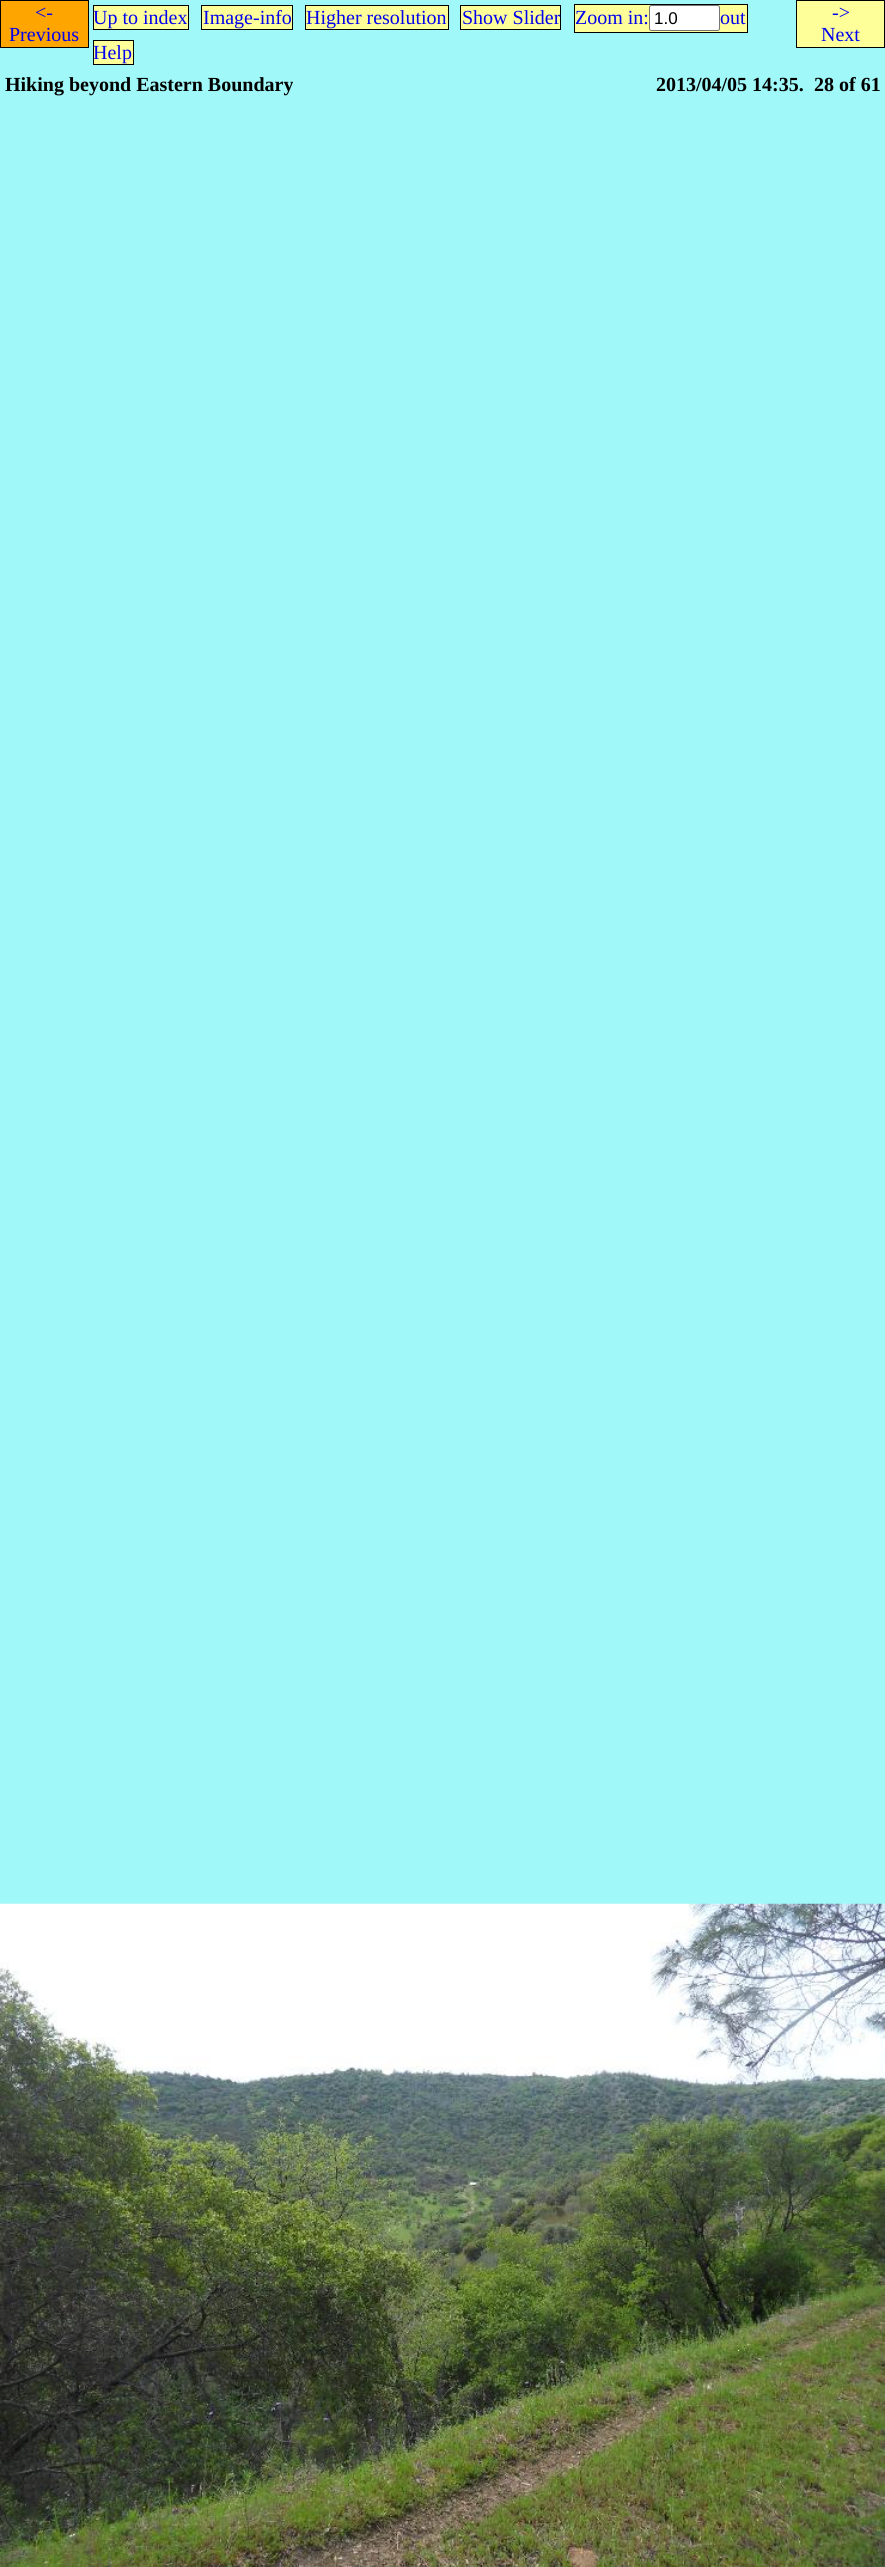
#include <cairo.h>
#include <math.h>
#include <stddef.h>

static cairo_t *ctx;

static void use_color(int r, int g, int b) {
    cairo_set_source_rgb(ctx, r / 255.0, g / 255.0, b / 255.0);
}

static void round_rect(double x, double y, double w, double h, double r) {
    cairo_new_sub_path(ctx);
    cairo_arc(ctx, x + w - r, y + h - r, r, 0, M_PI / 2);
    cairo_arc(ctx, x + r, y + h - r, r, M_PI / 2, M_PI);
    cairo_arc(ctx, x + r, y + r, r, M_PI, 1.5 * M_PI);
    cairo_arc(ctx, x + w - r, y + r, r, 1.5 * M_PI, 2 * M_PI);
    cairo_close_path(ctx);
}

static void picture(const char *path, double x, double y, double w, double h) {
    cairo_surface_t *image = cairo_image_surface_create_from_png(path);
    cairo_save(ctx);
    cairo_set_source_surface(ctx, image, x, y);
    cairo_rectangle(ctx, x, y, w, h);
    cairo_fill(ctx);
    cairo_restore(ctx);
    cairo_surface_destroy(image);
}

int main(void) {
    cairo_surface_t *surface = cairo_image_surface_create(CAIRO_FORMAT_RGB24, 885, 2567);
    ctx = cairo_create(surface);
    cairo_font_options_t *options = cairo_font_options_create();
    cairo_font_options_set_hint_metrics(options, CAIRO_HINT_METRICS_OFF);
    cairo_font_options_set_hint_style(options, CAIRO_HINT_STYLE_NONE);
    cairo_set_font_options(ctx, options);
    cairo_set_miter_limit(ctx, 4);
    use_color(160, 248, 248);
    cairo_paint(ctx);
    use_color(255, 165, 0);
    cairo_rectangle(ctx, 0.5, 0.5, 88, 47);
    cairo_fill_preserve(ctx);
    use_color(0, 0, 0);
    cairo_set_line_width(ctx, 1);
    cairo_stroke(ctx);
    cairo_select_font_face(ctx, "Liberation Serif", CAIRO_FONT_SLANT_NORMAL, CAIRO_FONT_WEIGHT_NORMAL);
    cairo_set_font_size(ctx, 20);
    use_color(0, 0, 238);
    cairo_move_to(ctx, 35, 19);
    cairo_show_text(ctx, "<-");
    cairo_move_to(ctx, 9, 41);
    cairo_show_text(ctx, "Previous");
    use_color(255, 255, 153);
    cairo_rectangle(ctx, 93.5, 5.5, 95, 24);
    cairo_fill_preserve(ctx);
    use_color(0, 0, 0);
    cairo_stroke(ctx);
    use_color(0, 0, 238);
    cairo_move_to(ctx, 93, 24);
    cairo_show_text(ctx, "Up to index");
    use_color(255, 255, 153);
    cairo_rectangle(ctx, 201.5, 5.5, 91, 24);
    cairo_fill_preserve(ctx);
    use_color(0, 0, 0);
    cairo_stroke(ctx);
    use_color(0, 0, 238);
    cairo_move_to(ctx, 203, 24);
    cairo_show_text(ctx, "Image-info");
    use_color(255, 255, 153);
    cairo_rectangle(ctx, 305.5, 5.5, 143, 24);
    cairo_fill_preserve(ctx);
    use_color(0, 0, 0);
    cairo_stroke(ctx);
    use_color(0, 0, 238);
    cairo_move_to(ctx, 306, 24);
    cairo_show_text(ctx, "Higher resolution");
    use_color(255, 255, 153);
    cairo_rectangle(ctx, 460.5, 5.5, 100, 24);
    cairo_fill_preserve(ctx);
    use_color(0, 0, 0);
    cairo_stroke(ctx);
    use_color(0, 0, 238);
    cairo_move_to(ctx, 462, 24);
    cairo_show_text(ctx, "Show Slider");
    use_color(255, 255, 153);
    cairo_rectangle(ctx, 574.5, 4.5, 173, 28);
    cairo_fill_preserve(ctx);
    use_color(0, 0, 0);
    cairo_stroke(ctx);
    use_color(0, 0, 238);
    cairo_move_to(ctx, 575, 24);
    cairo_show_text(ctx, "Zoom in:");
    use_color(255, 255, 255);
    round_rect(649.5, 5.5, 70, 25, 2);
    cairo_fill_preserve(ctx);
    use_color(118, 118, 118);
    cairo_stroke(ctx);
    cairo_select_font_face(ctx, "Liberation Sans", CAIRO_FONT_SLANT_NORMAL, CAIRO_FONT_WEIGHT_NORMAL);
    cairo_set_font_size(ctx, 17);
    use_color(0, 0, 0);
    cairo_move_to(ctx, 654, 24);
    cairo_show_text(ctx, "1.0");
    cairo_select_font_face(ctx, "Liberation Serif", CAIRO_FONT_SLANT_NORMAL, CAIRO_FONT_WEIGHT_NORMAL);
    cairo_set_font_size(ctx, 20);
    use_color(0, 0, 238);
    cairo_move_to(ctx, 720, 24);
    cairo_show_text(ctx, "out");
    use_color(255, 255, 153);
    cairo_rectangle(ctx, 93.5, 40.5, 40, 24);
    cairo_fill_preserve(ctx);
    use_color(0, 0, 0);
    cairo_stroke(ctx);
    use_color(0, 0, 238);
    cairo_move_to(ctx, 93, 59);
    cairo_show_text(ctx, "Help");
    use_color(255, 255, 153);
    cairo_rectangle(ctx, 796.5, 0.5, 88, 47);
    cairo_fill_preserve(ctx);
    use_color(0, 0, 0);
    cairo_stroke(ctx);
    use_color(0, 0, 238);
    cairo_move_to(ctx, 832, 19);
    cairo_show_text(ctx, "->");
    cairo_move_to(ctx, 821, 41);
    cairo_show_text(ctx, "Next");
    cairo_select_font_face(ctx, "Liberation Serif", CAIRO_FONT_SLANT_NORMAL, CAIRO_FONT_WEIGHT_BOLD);
    use_color(0, 0, 0);
    cairo_move_to(ctx, 5, 91);
    cairo_show_text(ctx, "Hiking beyond Eastern Boundary");
    cairo_move_to(ctx, 656, 91);
    cairo_show_text(ctx, "2013/04/05 14:35.");
    cairo_move_to(ctx, 814, 91);
    cairo_show_text(ctx, "28 of 61");
    picture("img1.png", 0, 1903, 885, 664);
    cairo_surface_write_to_png(surface, "result.png");
    cairo_font_options_destroy(options);
    cairo_destroy(ctx);
    cairo_surface_destroy(surface);
    return 0;
}
